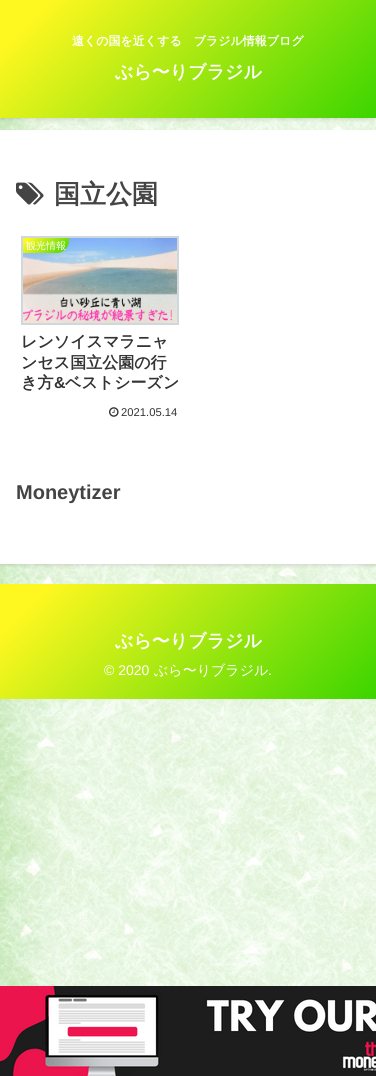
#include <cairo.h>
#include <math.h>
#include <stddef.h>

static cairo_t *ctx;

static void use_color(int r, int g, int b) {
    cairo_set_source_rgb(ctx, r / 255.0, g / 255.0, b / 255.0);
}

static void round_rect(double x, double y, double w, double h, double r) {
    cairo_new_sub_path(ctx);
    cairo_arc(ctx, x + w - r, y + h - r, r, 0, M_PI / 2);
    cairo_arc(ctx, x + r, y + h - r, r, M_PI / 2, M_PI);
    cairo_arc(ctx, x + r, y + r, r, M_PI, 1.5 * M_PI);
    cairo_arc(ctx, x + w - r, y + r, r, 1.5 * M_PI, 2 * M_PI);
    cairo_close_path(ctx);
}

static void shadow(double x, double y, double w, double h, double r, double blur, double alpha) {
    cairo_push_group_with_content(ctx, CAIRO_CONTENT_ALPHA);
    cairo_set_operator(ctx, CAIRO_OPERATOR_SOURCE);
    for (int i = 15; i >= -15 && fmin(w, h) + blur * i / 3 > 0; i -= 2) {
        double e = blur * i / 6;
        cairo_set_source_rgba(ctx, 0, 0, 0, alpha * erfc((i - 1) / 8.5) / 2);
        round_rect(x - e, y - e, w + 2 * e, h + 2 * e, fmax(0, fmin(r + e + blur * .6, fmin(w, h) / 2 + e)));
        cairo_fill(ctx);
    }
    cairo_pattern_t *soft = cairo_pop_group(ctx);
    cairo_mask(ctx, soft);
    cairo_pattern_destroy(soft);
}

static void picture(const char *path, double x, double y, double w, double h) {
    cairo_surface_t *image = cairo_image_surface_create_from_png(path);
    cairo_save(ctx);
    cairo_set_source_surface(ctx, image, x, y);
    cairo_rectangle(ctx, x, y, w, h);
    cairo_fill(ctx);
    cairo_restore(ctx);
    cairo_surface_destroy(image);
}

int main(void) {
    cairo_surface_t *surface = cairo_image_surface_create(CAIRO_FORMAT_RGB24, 376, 1076);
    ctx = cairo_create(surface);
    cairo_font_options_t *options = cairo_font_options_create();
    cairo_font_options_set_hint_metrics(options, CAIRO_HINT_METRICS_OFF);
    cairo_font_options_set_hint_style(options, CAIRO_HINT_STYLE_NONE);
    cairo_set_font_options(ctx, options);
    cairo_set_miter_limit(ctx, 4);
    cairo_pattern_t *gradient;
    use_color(255, 255, 255);
    cairo_paint(ctx);
    picture("img1.png", 0, 118, 376, 903);
    use_color(0, 0, 0);
    shadow(0, 2, 376, 118, 0, 1.5, 0.1);
    gradient = cairo_pattern_create_linear(64, -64, 312, 183);
    cairo_pattern_add_color_stop_rgba(gradient, 0.1, 1, 0.969, 0.125, 1);
    cairo_pattern_add_color_stop_rgba(gradient, 1, 0.235, 0.835, 0, 1);
    cairo_set_source(ctx, gradient);
    cairo_pattern_destroy(gradient);
    cairo_rectangle(ctx, 0, 0, 376, 118);
    cairo_fill(ctx);
    cairo_select_font_face(ctx, "WenQuanYi Zen Hei", CAIRO_FONT_SLANT_NORMAL, CAIRO_FONT_WEIGHT_BOLD);
    cairo_set_font_size(ctx, 12);
    use_color(255, 255, 255);
    cairo_move_to(ctx, 72, 45);
    cairo_show_text(ctx, "遠くの国を近くする　ブラジル情報ブログ");
    cairo_set_font_size(ctx, 18);
    cairo_move_to(ctx, 115, 78);
    cairo_show_text(ctx, "ぶら〜りブラジル");
    use_color(0, 0, 0);
    shadow(0, 132, 376, 434, 0, 1.5, 0.1);
    use_color(255, 255, 255);
    cairo_rectangle(ctx, 0, 130, 376, 434);
    cairo_fill(ctx);
    picture("img2.png", 16, 182, 28, 23);
    cairo_set_font_size(ctx, 26);
    use_color(68, 68, 68);
    cairo_move_to(ctx, 54, 203);
    cairo_show_text(ctx, "国立公園");
    cairo_rectangle(ctx, 22, 237, 156, 87);
    use_color(207, 216, 220);
    cairo_stroke(ctx);
    picture("img3.png", 23, 238, 154, 85);
    gradient = cairo_pattern_create_linear(31, 230, 61, 261);
    cairo_pattern_add_color_stop_rgba(gradient, 0.1, 1, 0.969, 0.125, 1);
    cairo_pattern_add_color_stop_rgba(gradient, 1, 0.235, 0.835, 0, 1);
    cairo_set_source(ctx, gradient);
    cairo_pattern_destroy(gradient);
    cairo_new_path(ctx);
    cairo_move_to(ctx, 23, 238);
    cairo_line_to(ctx, 69, 238);
    cairo_line_to(ctx, 69, 241);
    cairo_curve_to(ctx, 69, 247.5, 63.5, 253, 57, 253);
    cairo_line_to(ctx, 23, 253);
    cairo_close_path(ctx);
    cairo_fill(ctx);
    cairo_select_font_face(ctx, "WenQuanYi Zen Hei Medium", CAIRO_FONT_SLANT_NORMAL, CAIRO_FONT_WEIGHT_NORMAL);
    cairo_set_font_size(ctx, 10);
    use_color(255, 255, 255);
    cairo_move_to(ctx, 26, 249);
    cairo_show_text(ctx, "観光情報");
    cairo_select_font_face(ctx, "WenQuanYi Zen Hei", CAIRO_FONT_SLANT_NORMAL, CAIRO_FONT_WEIGHT_BOLD);
    cairo_set_font_size(ctx, 16);
    use_color(51, 51, 51);
    cairo_move_to(ctx, 21, 347);
    cairo_show_text(ctx, "レンソイスマラニャ");
    cairo_move_to(ctx, 21, 368);
    cairo_show_text(ctx, "ンセス国立公園の行");
    cairo_move_to(ctx, 21, 388);
    cairo_show_text(ctx, "き方");
    cairo_select_font_face(ctx, "Liberation Sans", CAIRO_FONT_SLANT_NORMAL, CAIRO_FONT_WEIGHT_BOLD);
    cairo_move_to(ctx, 54, 388);
    cairo_show_text(ctx, "&");
    cairo_select_font_face(ctx, "WenQuanYi Zen Hei", CAIRO_FONT_SLANT_NORMAL, CAIRO_FONT_WEIGHT_BOLD);
    cairo_move_to(ctx, 65, 388);
    cairo_show_text(ctx, "ベストシーズン");
    picture("img4.png", 109, 407, 10, 10);
    cairo_select_font_face(ctx, "Liberation Sans", CAIRO_FONT_SLANT_NORMAL, CAIRO_FONT_WEIGHT_NORMAL);
    cairo_set_font_size(ctx, 11.25);
    cairo_move_to(ctx, 121, 416);
    cairo_show_text(ctx, "2021.05.14");
    cairo_select_font_face(ctx, "Liberation Sans", CAIRO_FONT_SLANT_NORMAL, CAIRO_FONT_WEIGHT_BOLD);
    cairo_set_font_size(ctx, 20);
    use_color(68, 68, 68);
    cairo_move_to(ctx, 16, 499);
    cairo_show_text(ctx, "Moneytizer");
    gradient = cairo_pattern_create_linear(65, 519, 311, 764);
    cairo_pattern_add_color_stop_rgba(gradient, 0.1, 1, 0.969, 0.125, 1);
    cairo_pattern_add_color_stop_rgba(gradient, 1, 0.235, 0.835, 0, 1);
    cairo_set_source(ctx, gradient);
    cairo_pattern_destroy(gradient);
    cairo_rectangle(ctx, 0, 584, 376, 115);
    cairo_fill(ctx);
    cairo_select_font_face(ctx, "WenQuanYi Zen Hei", CAIRO_FONT_SLANT_NORMAL, CAIRO_FONT_WEIGHT_BOLD);
    cairo_set_font_size(ctx, 18);
    use_color(255, 255, 255);
    cairo_move_to(ctx, 115, 647);
    cairo_show_text(ctx, "ぶら〜りブラジル");
    cairo_select_font_face(ctx, "Liberation Sans", CAIRO_FONT_SLANT_NORMAL, CAIRO_FONT_WEIGHT_NORMAL);
    cairo_set_font_size(ctx, 14);
    cairo_move_to(ctx, 104, 675);
    cairo_show_text(ctx, "© 2020");
    cairo_select_font_face(ctx, "WenQuanYi Zen Hei Medium", CAIRO_FONT_SLANT_NORMAL, CAIRO_FONT_WEIGHT_NORMAL);
    cairo_move_to(ctx, 154, 675);
    cairo_show_text(ctx, "ぶら〜りブラジル");
    cairo_select_font_face(ctx, "Liberation Sans", CAIRO_FONT_SLANT_NORMAL, CAIRO_FONT_WEIGHT_NORMAL);
    cairo_move_to(ctx, 268, 675);
    cairo_show_text(ctx, ".");
    picture("img5.png", 0, 1021, 376, 55);
    cairo_surface_write_to_png(surface, "result.png");
    cairo_font_options_destroy(options);
    cairo_destroy(ctx);
    cairo_surface_destroy(surface);
    return 0;
}
